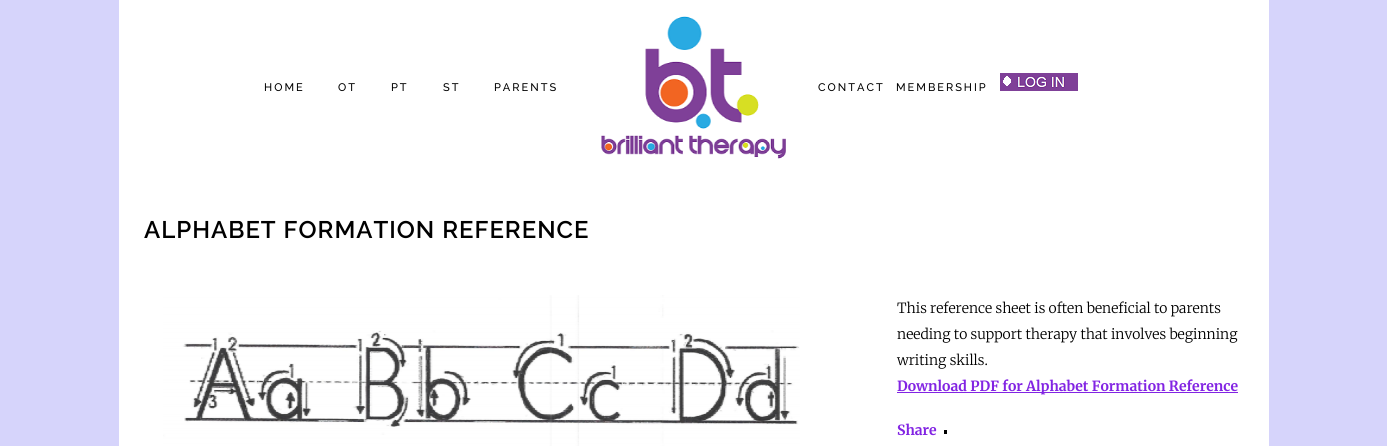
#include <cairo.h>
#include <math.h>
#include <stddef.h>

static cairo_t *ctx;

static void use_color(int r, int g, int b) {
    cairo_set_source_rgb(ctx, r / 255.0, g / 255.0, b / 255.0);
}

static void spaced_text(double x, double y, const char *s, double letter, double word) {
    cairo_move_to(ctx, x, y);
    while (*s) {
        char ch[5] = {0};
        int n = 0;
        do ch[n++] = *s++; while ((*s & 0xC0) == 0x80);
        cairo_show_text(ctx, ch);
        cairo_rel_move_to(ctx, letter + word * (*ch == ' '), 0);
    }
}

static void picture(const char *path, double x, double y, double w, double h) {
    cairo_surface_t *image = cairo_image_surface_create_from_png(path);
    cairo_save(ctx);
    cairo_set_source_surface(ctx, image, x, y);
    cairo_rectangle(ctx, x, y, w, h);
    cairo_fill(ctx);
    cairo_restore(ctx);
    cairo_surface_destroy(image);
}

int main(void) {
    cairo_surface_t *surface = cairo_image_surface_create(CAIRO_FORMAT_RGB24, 1387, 446);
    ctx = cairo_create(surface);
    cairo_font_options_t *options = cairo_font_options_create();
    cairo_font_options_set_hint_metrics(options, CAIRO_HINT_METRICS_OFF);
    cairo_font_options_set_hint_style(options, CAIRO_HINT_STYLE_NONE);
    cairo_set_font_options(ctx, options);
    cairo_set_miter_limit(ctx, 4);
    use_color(214, 212, 251);
    cairo_paint(ctx);
    use_color(255, 255, 255);
    cairo_rectangle(ctx, 119, 0, 1150, 446);
    cairo_fill(ctx);
    cairo_select_font_face(ctx, "Raleway Medium", CAIRO_FONT_SLANT_NORMAL, CAIRO_FONT_WEIGHT_NORMAL);
    cairo_set_font_size(ctx, 11);
    use_color(0, 0, 0);
    spaced_text(264, 91, "HOME", 2, 0);
    spaced_text(338, 91, "OT", 2, 0);
    spaced_text(391, 91, "PT", 2, 0);
    spaced_text(443, 91, "ST", 2, 0);
    spaced_text(494, 91, "PARENTS", 2, 0);
    picture("img1.png", 601, 16, 185, 143);
    spaced_text(818, 91, "CONTACT", 2, 0);
    spaced_text(896, 91, "MEMBERSHIP", 2, 0);
    picture("img2.png", 1000, 73, 78, 18);
    cairo_select_font_face(ctx, "Raleway SemiBold", CAIRO_FONT_SLANT_NORMAL, CAIRO_FONT_WEIGHT_NORMAL);
    cairo_set_font_size(ctx, 24);
    spaced_text(144, 238, "ALPHABET FORMATION REFERENCE", 1, 0);
    picture("img3.png", 163, 295, 637, 151);
    cairo_select_font_face(ctx, "Merriweather Light", CAIRO_FONT_SLANT_NORMAL, CAIRO_FONT_WEIGHT_NORMAL);
    cairo_set_font_size(ctx, 14);
    cairo_move_to(ctx, 897, 313);
    cairo_show_text(ctx, "This reference sheet is often beneficial to parents");
    cairo_move_to(ctx, 897, 339);
    cairo_show_text(ctx, "needing to support therapy that involves beginning");
    cairo_move_to(ctx, 897, 365);
    cairo_show_text(ctx, "writing skills.");
    use_color(130, 36, 227);
    cairo_rectangle(ctx, 897, 392, 341, 1);
    cairo_fill(ctx);
    cairo_select_font_face(ctx, "Merriweather", CAIRO_FONT_SLANT_NORMAL, CAIRO_FONT_WEIGHT_BOLD);
    cairo_move_to(ctx, 897, 391);
    cairo_show_text(ctx, "Download PDF for Alphabet Formation Reference");
    cairo_move_to(ctx, 897, 435);
    cairo_show_text(ctx, "Share");
    use_color(0, 0, 0);
    cairo_rectangle(ctx, 944, 430, 3, 4);
    cairo_fill(ctx);
    cairo_surface_write_to_png(surface, "result.png");
    cairo_font_options_destroy(options);
    cairo_destroy(ctx);
    cairo_surface_destroy(surface);
    return 0;
}
